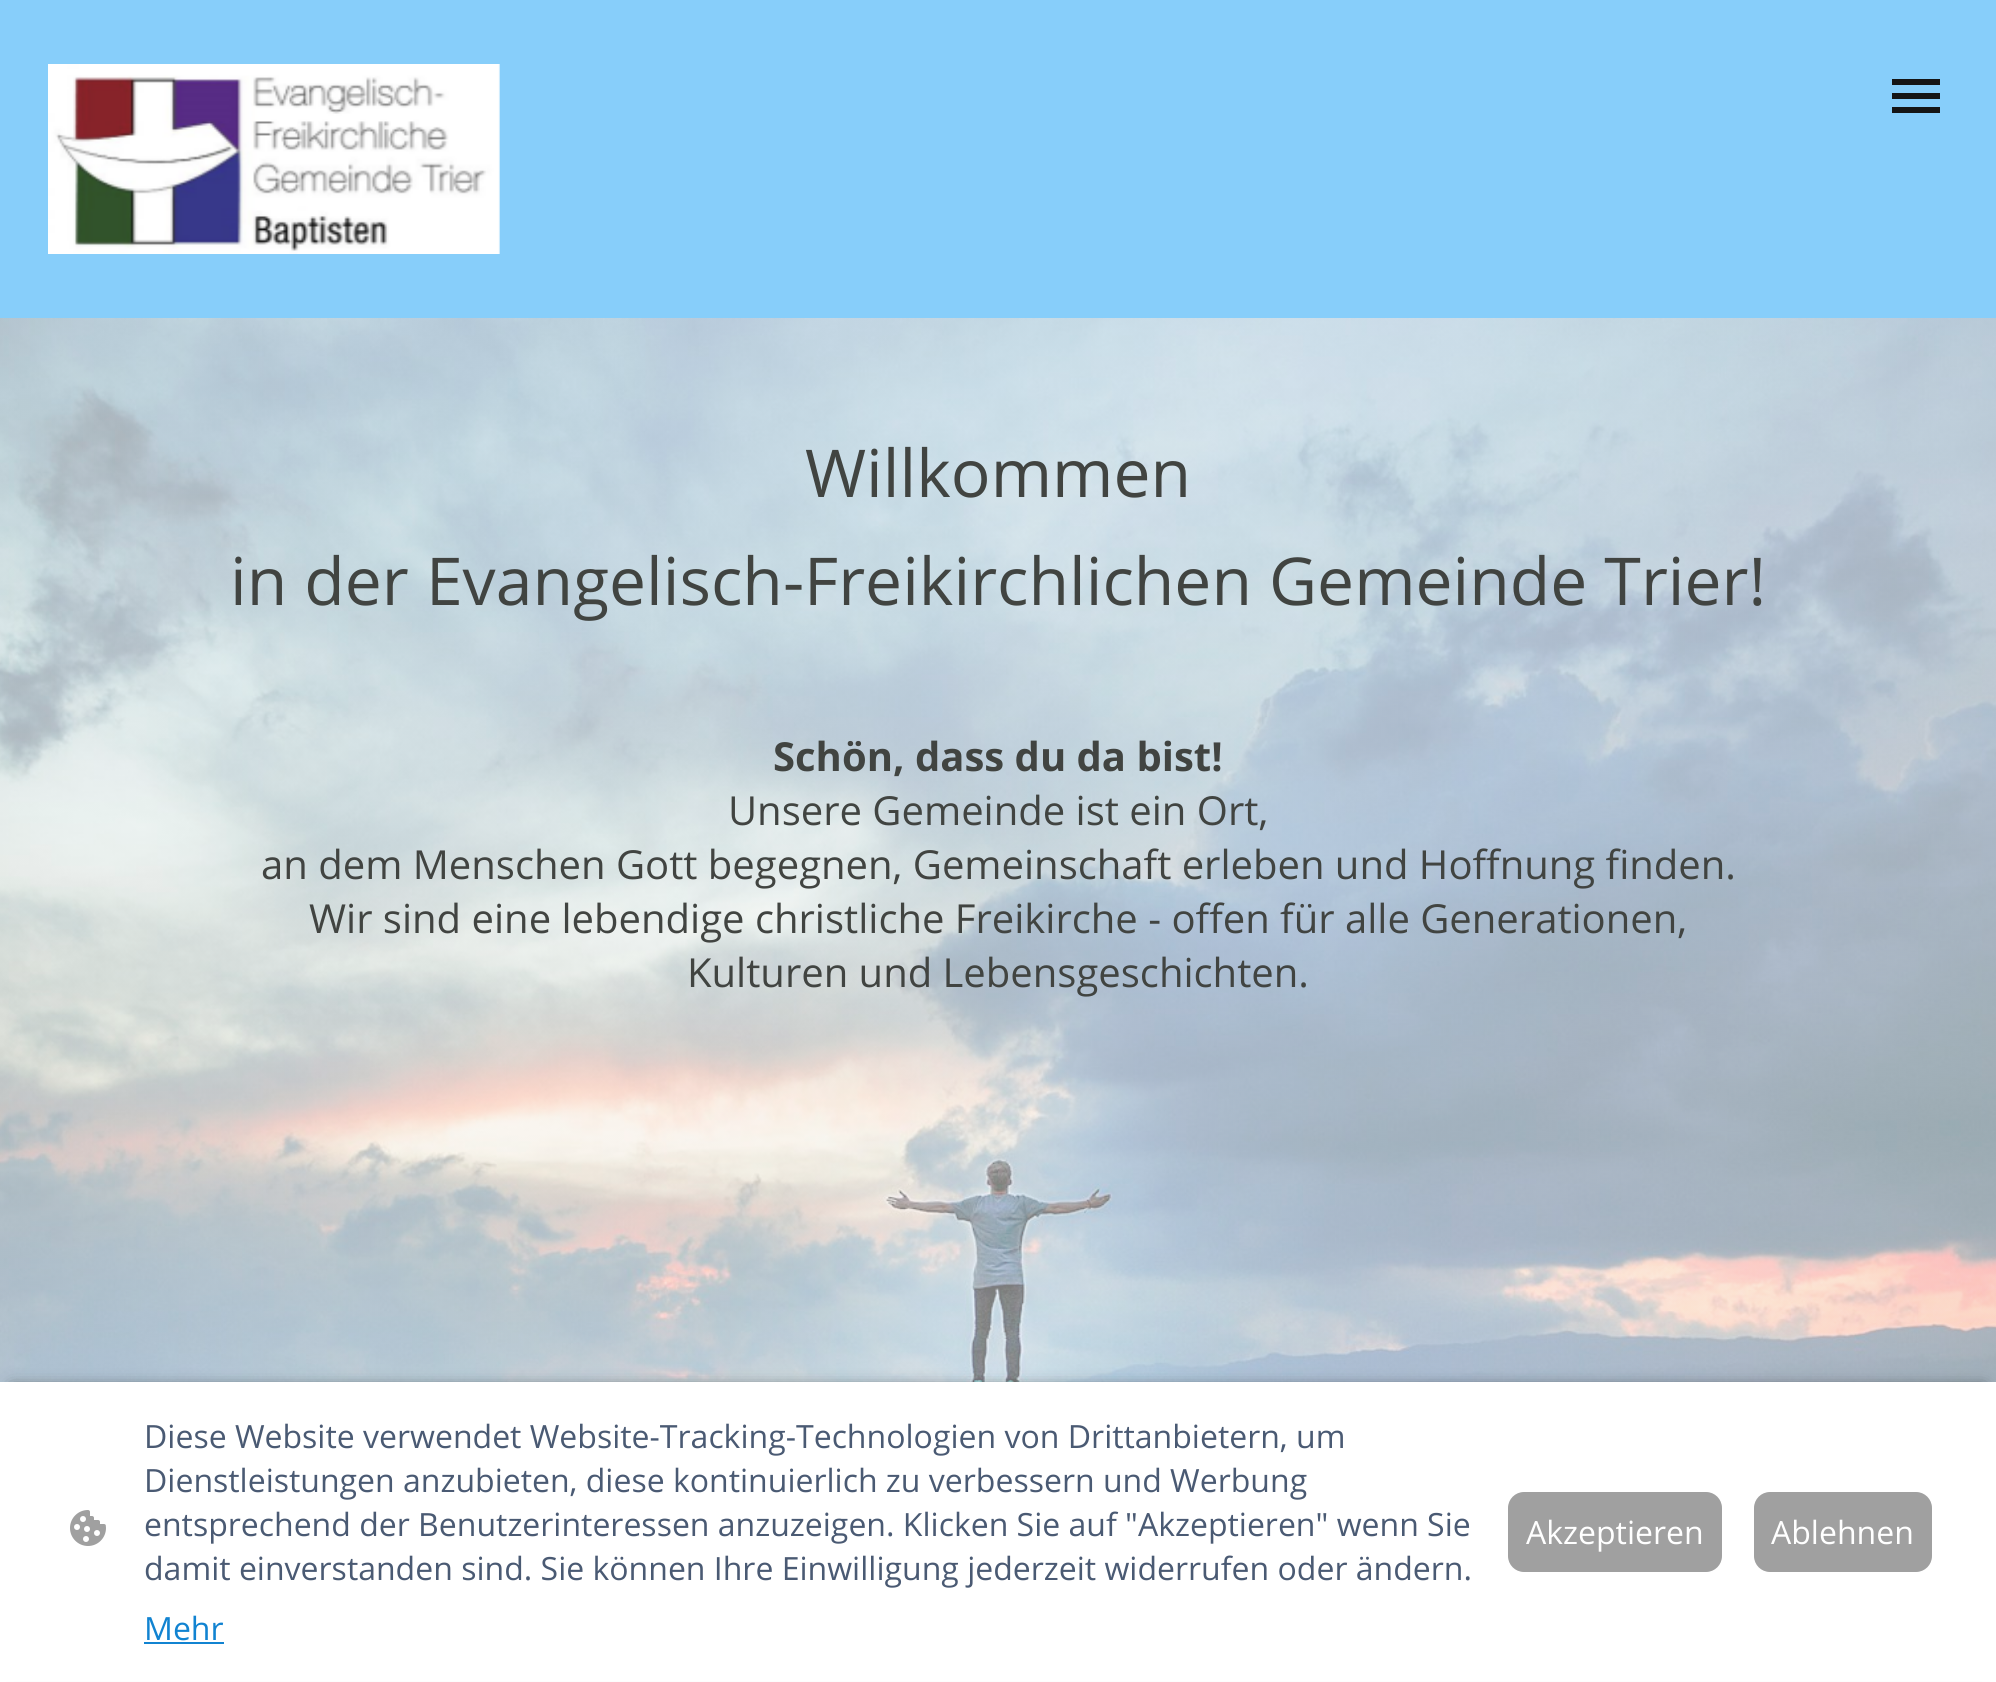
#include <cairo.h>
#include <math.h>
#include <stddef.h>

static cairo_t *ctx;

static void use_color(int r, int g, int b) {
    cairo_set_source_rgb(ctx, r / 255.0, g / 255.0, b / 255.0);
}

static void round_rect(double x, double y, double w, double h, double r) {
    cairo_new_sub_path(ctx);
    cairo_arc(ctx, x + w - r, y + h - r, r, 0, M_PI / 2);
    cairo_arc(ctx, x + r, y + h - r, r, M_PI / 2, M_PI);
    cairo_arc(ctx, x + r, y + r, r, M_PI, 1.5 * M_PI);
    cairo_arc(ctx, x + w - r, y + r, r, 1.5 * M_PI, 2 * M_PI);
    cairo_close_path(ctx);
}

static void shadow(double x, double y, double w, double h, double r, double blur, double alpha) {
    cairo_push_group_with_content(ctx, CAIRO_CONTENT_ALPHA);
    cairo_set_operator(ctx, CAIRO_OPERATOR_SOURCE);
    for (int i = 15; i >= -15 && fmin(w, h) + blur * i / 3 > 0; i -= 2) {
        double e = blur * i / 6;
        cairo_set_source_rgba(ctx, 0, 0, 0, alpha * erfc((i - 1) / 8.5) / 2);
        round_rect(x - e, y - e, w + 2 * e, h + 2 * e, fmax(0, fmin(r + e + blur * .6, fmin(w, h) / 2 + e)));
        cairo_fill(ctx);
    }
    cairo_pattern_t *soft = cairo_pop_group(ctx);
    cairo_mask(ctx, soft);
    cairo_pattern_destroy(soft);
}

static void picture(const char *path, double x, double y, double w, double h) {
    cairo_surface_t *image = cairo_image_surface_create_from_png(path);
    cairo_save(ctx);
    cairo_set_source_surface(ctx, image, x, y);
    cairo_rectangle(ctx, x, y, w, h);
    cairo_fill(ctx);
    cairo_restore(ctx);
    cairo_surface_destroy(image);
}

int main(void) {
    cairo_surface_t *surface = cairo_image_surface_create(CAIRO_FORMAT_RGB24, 1996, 1682);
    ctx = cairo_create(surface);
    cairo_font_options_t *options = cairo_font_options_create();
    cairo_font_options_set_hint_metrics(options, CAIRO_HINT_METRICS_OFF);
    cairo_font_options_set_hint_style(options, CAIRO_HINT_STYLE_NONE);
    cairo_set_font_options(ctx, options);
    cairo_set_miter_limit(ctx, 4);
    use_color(255, 255, 255);
    cairo_paint(ctx);
    use_color(135, 206, 250);
    cairo_rectangle(ctx, 0, 0, 1996, 318);
    cairo_fill(ctx);
    picture("img1.png", 48, 64, 452, 190);
    use_color(21, 21, 21);
    cairo_rectangle(ctx, 1892, 79, 48, 6);
    cairo_fill(ctx);
    cairo_rectangle(ctx, 1892, 93, 48, 6);
    cairo_fill(ctx);
    cairo_rectangle(ctx, 1892, 107, 48, 6);
    cairo_fill(ctx);
    picture("img2.png", 0, 318, 1996, 1064);
    cairo_select_font_face(ctx, "Open Sans", CAIRO_FONT_SLANT_NORMAL, CAIRO_FONT_WEIGHT_NORMAL);
    cairo_set_font_size(ctx, 66);
    use_color(65, 68, 65);
    cairo_move_to(ctx, 805, 497);
    cairo_show_text(ctx, "Willkommen");
    cairo_move_to(ctx, 230, 605);
    cairo_show_text(ctx, "in der Evangelisch-Freikirchlichen Gemeinde Trier!");
    cairo_select_font_face(ctx, "Open Sans", CAIRO_FONT_SLANT_NORMAL, CAIRO_FONT_WEIGHT_BOLD);
    cairo_set_font_size(ctx, 40);
    cairo_move_to(ctx, 773, 771);
    cairo_show_text(ctx, "Schön, dass du da bist!");
    cairo_select_font_face(ctx, "Open Sans", CAIRO_FONT_SLANT_NORMAL, CAIRO_FONT_WEIGHT_NORMAL);
    cairo_move_to(ctx, 728, 825);
    cairo_show_text(ctx, "Unsere Gemeinde ist ein Ort,");
    cairo_move_to(ctx, 261, 879);
    cairo_show_text(ctx, "an dem Menschen Gott begegnen, Gemeinschaft erleben und Hoffnung finden.");
    cairo_move_to(ctx, 309, 933);
    cairo_show_text(ctx, "Wir sind eine lebendige christliche Freikirche - offen für alle Generationen,");
    cairo_move_to(ctx, 687, 987);
    cairo_show_text(ctx, "Kulturen und Lebensgeschichten.");
    use_color(0, 0, 0);
    shadow(12, 1388, 1972, 276, 0, 8, 0.63);
    use_color(255, 255, 255);
    cairo_rectangle(ctx, 0, 1382, 1996, 299);
    cairo_fill(ctx);
    picture("img3.png", 70, 1510, 36, 36);
    cairo_set_font_size(ctx, 32);
    use_color(74, 90, 115);
    cairo_move_to(ctx, 144, 1448);
    cairo_show_text(ctx, "Diese Website verwendet Website-Tracking-Technologien von Drittanbietern, um");
    cairo_move_to(ctx, 144, 1492);
    cairo_show_text(ctx, "Dienstleistungen anzubieten, diese kontinuierlich zu verbessern und Werbung");
    cairo_move_to(ctx, 144, 1536);
    cairo_show_text(ctx, "entsprechend der Benutzerinteressen anzuzeigen. Klicken Sie auf \"Akzeptieren\" wenn Sie");
    cairo_move_to(ctx, 144, 1580);
    cairo_show_text(ctx, "damit einverstanden sind. Sie können Ihre Einwilligung jederzeit widerrufen oder ändern.");
    use_color(17, 131, 209);
    cairo_move_to(ctx, 144, 1640);
    cairo_show_text(ctx, "Mehr");
    cairo_rectangle(ctx, 144, 1642, 80, 2);
    cairo_fill(ctx);
    use_color(160, 160, 160);
    round_rect(1509, 1493, 212, 78, 15);
    cairo_fill_preserve(ctx);
    cairo_stroke(ctx);
    use_color(255, 255, 255);
    cairo_move_to(ctx, 1526, 1544);
    cairo_show_text(ctx, "Akzeptieren");
    use_color(160, 160, 160);
    round_rect(1755, 1493, 176, 78, 15);
    cairo_fill_preserve(ctx);
    cairo_stroke(ctx);
    use_color(255, 255, 255);
    cairo_move_to(ctx, 1771, 1544);
    cairo_show_text(ctx, "Ablehnen");
    cairo_surface_write_to_png(surface, "result.png");
    cairo_font_options_destroy(options);
    cairo_destroy(ctx);
    cairo_surface_destroy(surface);
    return 0;
}
